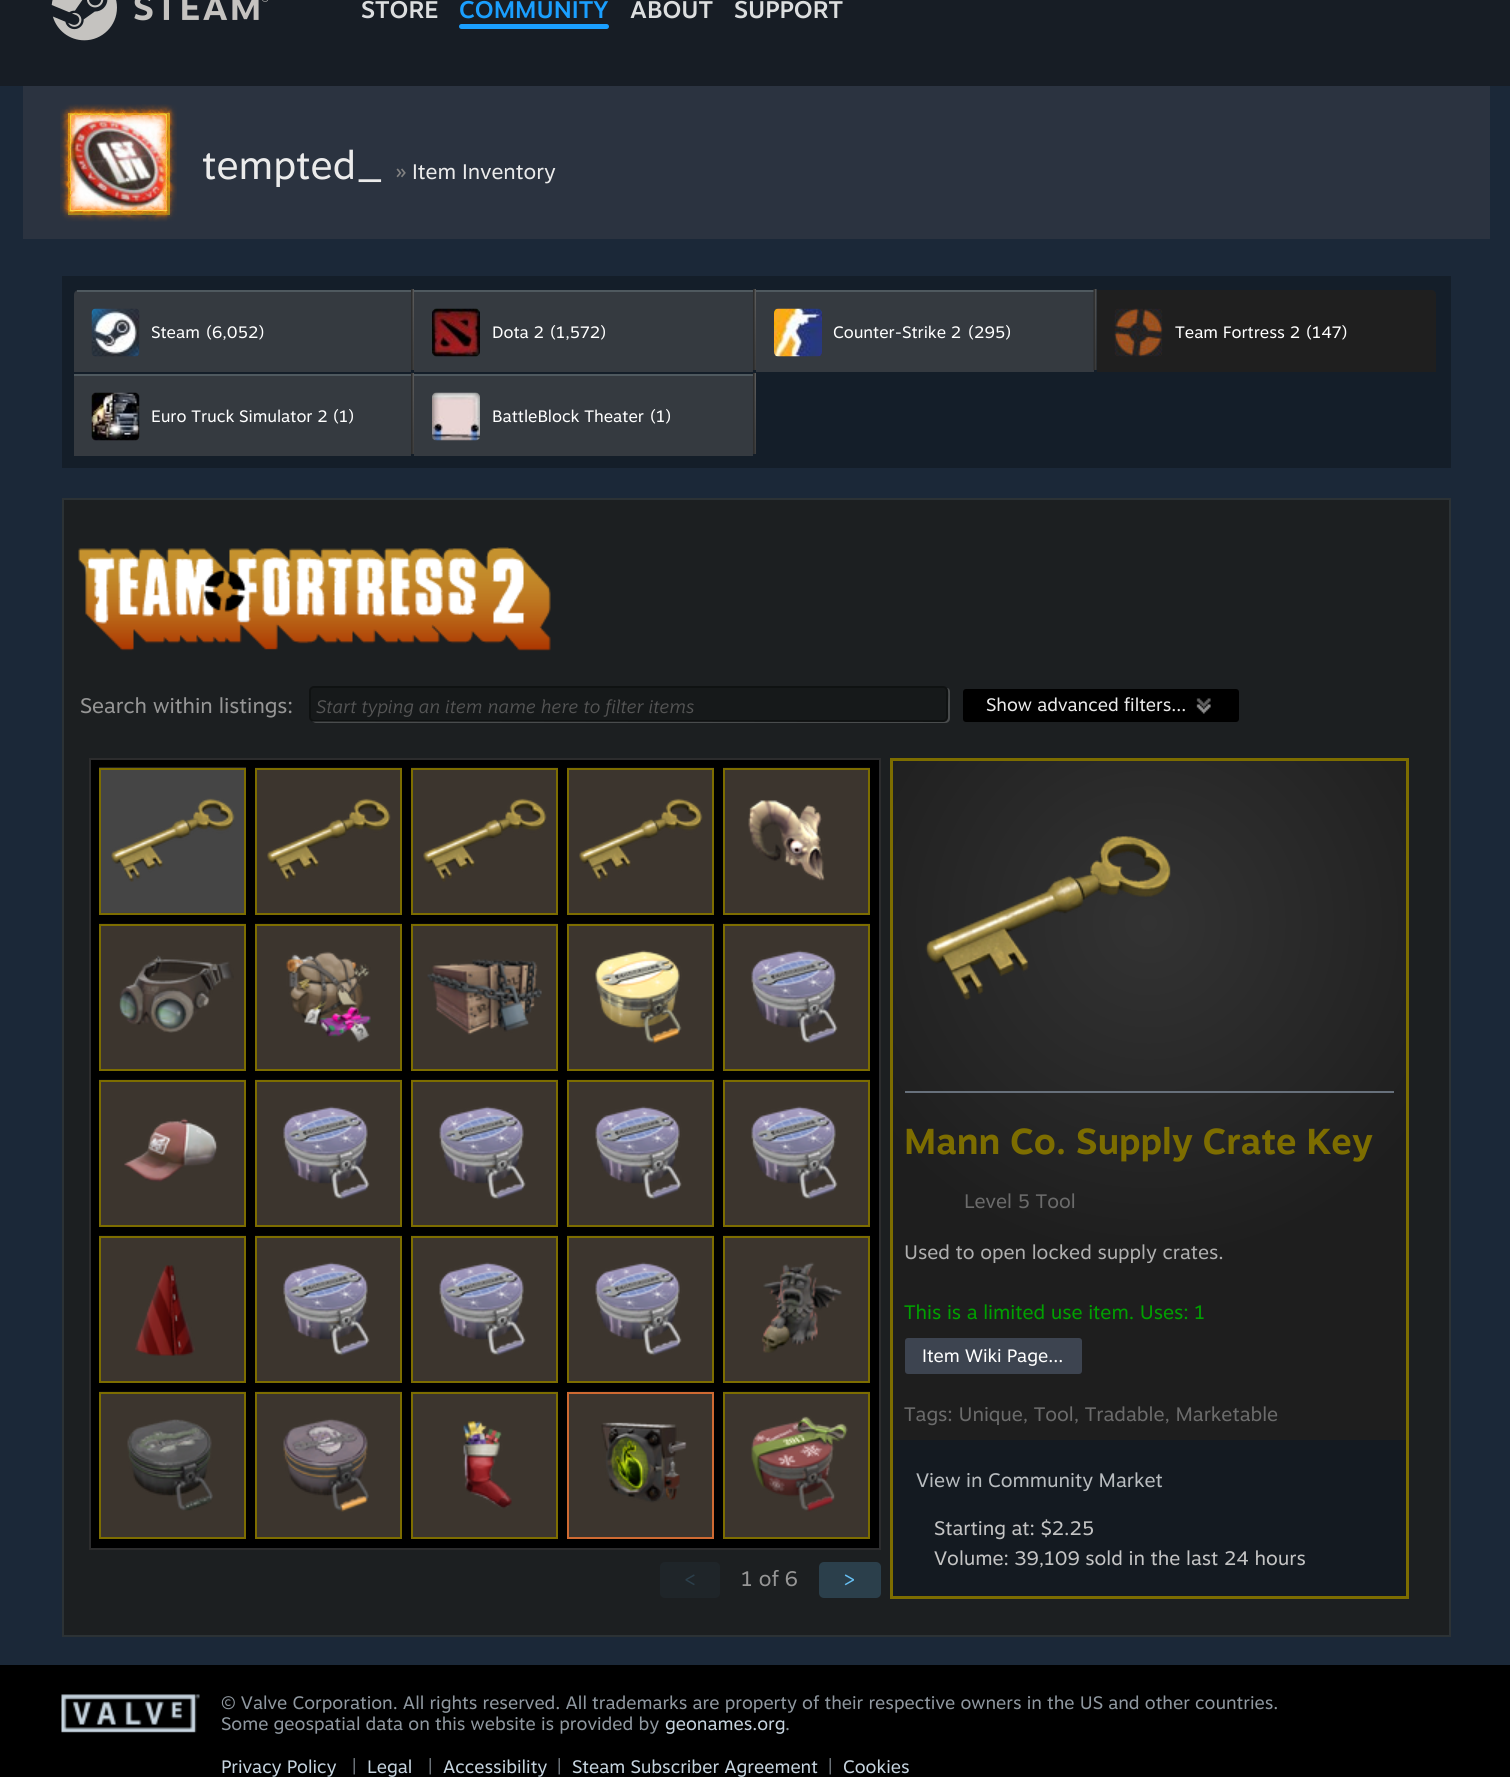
#include <cairo.h>
#include <math.h>
#include <stddef.h>

static cairo_t *ctx;

static void use_color(int r, int g, int b) {
    cairo_set_source_rgb(ctx, r / 255.0, g / 255.0, b / 255.0);
}

static void round_rect(double x, double y, double w, double h, double r) {
    cairo_new_sub_path(ctx);
    cairo_arc(ctx, x + w - r, y + h - r, r, 0, M_PI / 2);
    cairo_arc(ctx, x + r, y + h - r, r, M_PI / 2, M_PI);
    cairo_arc(ctx, x + r, y + r, r, M_PI, 1.5 * M_PI);
    cairo_arc(ctx, x + w - r, y + r, r, 1.5 * M_PI, 2 * M_PI);
    cairo_close_path(ctx);
}

static void picture(const char *path, double x, double y, double w, double h) {
    cairo_surface_t *image = cairo_image_surface_create_from_png(path);
    cairo_save(ctx);
    cairo_set_source_surface(ctx, image, x, y);
    cairo_rectangle(ctx, x, y, w, h);
    cairo_fill(ctx);
    cairo_restore(ctx);
    cairo_surface_destroy(image);
}

int main(void) {
    cairo_surface_t *surface = cairo_image_surface_create(CAIRO_FORMAT_RGB24, 1510, 1777);
    ctx = cairo_create(surface);
    cairo_font_options_t *options = cairo_font_options_create();
    cairo_font_options_set_hint_metrics(options, CAIRO_HINT_METRICS_OFF);
    cairo_font_options_set_hint_style(options, CAIRO_HINT_STYLE_NONE);
    cairo_set_font_options(ctx, options);
    cairo_set_miter_limit(ctx, 4);
    cairo_pattern_t *gradient;
    use_color(27, 40, 56);
    cairo_paint(ctx);
    use_color(23, 29, 37);
    cairo_rectangle(ctx, 0, 0, 1510, 86);
    cairo_fill(ctx);
    picture("img1.png", 51, 0, 217, 41);
    cairo_select_font_face(ctx, "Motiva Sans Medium", CAIRO_FONT_SLANT_NORMAL, CAIRO_FONT_WEIGHT_NORMAL);
    cairo_set_font_size(ctx, 24);
    use_color(220, 222, 223);
    cairo_move_to(ctx, 361, 18);
    cairo_show_text(ctx, "STORE");
    use_color(26, 159, 255);
    cairo_move_to(ctx, 459, 18);
    cairo_show_text(ctx, "COMMUNITY");
    round_rect(459, 24, 150, 5, 2.5);
    cairo_fill(ctx);
    use_color(220, 222, 223);
    cairo_move_to(ctx, 630, 18);
    cairo_show_text(ctx, "ABOUT");
    cairo_move_to(ctx, 734, 18);
    cairo_show_text(ctx, "SUPPORT");
    use_color(43, 51, 64);
    cairo_rectangle(ctx, 23, 86, 1467, 153);
    cairo_fill(ctx);
    gradient = cairo_pattern_create_linear(119, 113, 119, 215);
    cairo_pattern_add_color_stop_rgba(gradient, 0.05, 0.561, 0.725, 0.231, 1);
    cairo_pattern_add_color_stop_rgba(gradient, 0.95, 0.431, 0.549, 0.192, 1);
    cairo_set_source(ctx, gradient);
    cairo_pattern_destroy(gradient);
    cairo_rectangle(ctx, 68, 113, 102, 102);
    cairo_fill(ctx);
    gradient = cairo_pattern_create_linear(119, 114, 119, 213);
    cairo_pattern_add_color_stop_rgba(gradient, 0.05, 0.4, 0.506, 0.18, 1);
    cairo_pattern_add_color_stop_rgba(gradient, 0.95, 0.349, 0.439, 0.169, 1);
    cairo_set_source(ctx, gradient);
    cairo_pattern_destroy(gradient);
    cairo_rectangle(ctx, 69, 114, 99, 99);
    cairo_fill(ctx);
    picture("img3.png", 70, 115, 97, 96);
    picture("img2.png", 60, 104, 117, 118);
    cairo_save(ctx);
    cairo_rectangle(ctx, 203, 137, 1242, 55);
    cairo_clip(ctx);
    cairo_select_font_face(ctx, "Motiva Sans", CAIRO_FONT_SLANT_NORMAL, CAIRO_FONT_WEIGHT_NORMAL);
    cairo_set_font_size(ctx, 39);
    use_color(235, 235, 235);
    cairo_move_to(ctx, 202, 179);
    cairo_show_text(ctx, "tempted_");
    cairo_restore(ctx);
    cairo_select_font_face(ctx, "Motiva Sans", CAIRO_FONT_SLANT_NORMAL, CAIRO_FONT_WEIGHT_NORMAL);
    use_color(130, 130, 130);
    cairo_move_to(ctx, 395, 179);
    cairo_show_text(ctx, "»");
    cairo_set_font_size(ctx, 21);
    use_color(235, 235, 235);
    cairo_move_to(ctx, 412, 179);
    cairo_show_text(ctx, "Item Inventory");
    use_color(20, 30, 41);
    cairo_rectangle(ctx, 62, 276, 1389, 192);
    cairo_fill(ctx);
    use_color(53, 58, 64);
    cairo_new_path(ctx);
    cairo_move_to(ctx, 79, 290);
    cairo_line_to(ctx, 411, 290);
    cairo_line_to(ctx, 411, 372);
    cairo_line_to(ctx, 74, 372);
    cairo_line_to(ctx, 74, 295);
    cairo_curve_to(ctx, 74, 292, 76, 290, 79, 290);
    cairo_close_path(ctx);
    cairo_fill(ctx);
    use_color(79, 89, 95);
    cairo_rectangle(ctx, 77, 290, 334, 2);
    cairo_fill(ctx);
    picture("img4.png", 91, 308, 49, 49);
    cairo_save(ctx);
    cairo_rectangle(ctx, 152, 291, 48, 81);
    cairo_clip(ctx);
    cairo_set_font_size(ctx, 16.5);
    use_color(255, 255, 255);
    cairo_move_to(ctx, 151, 338);
    cairo_show_text(ctx, "Steam");
    cairo_restore(ctx);
    cairo_set_font_size(ctx, 16.5);
    use_color(255, 255, 255);
    cairo_move_to(ctx, 206, 338);
    cairo_show_text(ctx, "(6,052)");
    picture("img5.png", 411, 289, 3, 81);
    use_color(53, 58, 64);
    cairo_rectangle(ctx, 414, 292, 339, 80);
    cairo_fill(ctx);
    use_color(79, 89, 95);
    cairo_rectangle(ctx, 414, 290, 339, 2);
    cairo_fill(ctx);
    picture("img6.png", 432, 308, 48, 49);
    use_color(255, 255, 255);
    cairo_move_to(ctx, 492, 338);
    cairo_show_text(ctx, "Dota 2");
    cairo_move_to(ctx, 550, 338);
    cairo_show_text(ctx, "(1,572)");
    picture("img5.png", 753, 289, 3, 81);
    use_color(53, 58, 64);
    cairo_rectangle(ctx, 756, 292, 338, 80);
    cairo_fill(ctx);
    use_color(79, 89, 95);
    cairo_rectangle(ctx, 756, 290, 338, 2);
    cairo_fill(ctx);
    picture("img7.png", 774, 308, 48, 49);
    use_color(255, 255, 255);
    cairo_move_to(ctx, 833, 338);
    cairo_show_text(ctx, "Counter-Strike 2");
    cairo_move_to(ctx, 968, 338);
    cairo_show_text(ctx, "(295)");
    picture("img8.png", 1093, 289, 4, 81);
    use_color(31, 31, 31);
    cairo_new_path(ctx);
    cairo_move_to(ctx, 1097, 290);
    cairo_line_to(ctx, 1431, 290);
    cairo_curve_to(ctx, 1434, 290, 1436, 292, 1436, 295);
    cairo_line_to(ctx, 1436, 372);
    cairo_line_to(ctx, 1097, 372);
    cairo_close_path(ctx);
    cairo_fill(ctx);
    picture("img9.png", 1114, 308, 49, 49);
    use_color(255, 255, 255);
    cairo_move_to(ctx, 1175, 338);
    cairo_show_text(ctx, "Team Fortress 2");
    cairo_move_to(ctx, 1306, 338);
    cairo_show_text(ctx, "(147)");
    use_color(53, 58, 64);
    cairo_rectangle(ctx, 74, 376, 337, 80);
    cairo_fill(ctx);
    use_color(79, 89, 95);
    cairo_rectangle(ctx, 74, 374, 337, 2);
    cairo_fill(ctx);
    picture("img10.png", 91, 392, 49, 49);
    use_color(255, 255, 255);
    cairo_move_to(ctx, 151, 422);
    cairo_show_text(ctx, "Euro Truck Simulator 2");
    cairo_move_to(ctx, 333, 422);
    cairo_show_text(ctx, "(1)");
    picture("img5.png", 411, 373, 3, 81);
    use_color(53, 58, 64);
    cairo_rectangle(ctx, 414, 376, 339, 80);
    cairo_fill(ctx);
    use_color(79, 89, 95);
    cairo_rectangle(ctx, 414, 374, 339, 2);
    cairo_fill(ctx);
    picture("img11.png", 432, 392, 48, 49);
    use_color(255, 255, 255);
    cairo_move_to(ctx, 492, 422);
    cairo_show_text(ctx, "BattleBlock Theater");
    cairo_move_to(ctx, 650, 422);
    cairo_show_text(ctx, "(1)");
    picture("img5.png", 753, 373, 3, 81);
    use_color(28, 31, 33);
    cairo_rectangle(ctx, 63, 499, 1387, 1137);
    cairo_fill_preserve(ctx);
    use_color(44, 50, 53);
    cairo_stroke(ctx);
    picture("img12.png", 78, 547, 473, 104);
    cairo_set_font_size(ctx, 21);
    use_color(150, 150, 150);
    cairo_move_to(ctx, 80, 713);
    cairo_show_text(ctx, "Search within listings:");
    use_color(73, 76, 77);
    cairo_new_path(ctx);
    cairo_move_to(ctx, 312, 721);
    cairo_curve_to(ctx, 313, 722, 315, 723, 316, 723);
    cairo_line_to(ctx, 945, 723);
    cairo_curve_to(ctx, 948, 723, 950, 721, 950, 718);
    cairo_line_to(ctx, 950, 692);
    cairo_curve_to(ctx, 950, 690, 949, 688, 947, 688);
    cairo_curve_to(ctx, 949, 690, 948, 700, 948, 704);
    cairo_line_to(ctx, 948, 712);
    cairo_curve_to(ctx, 948, 716, 949, 721, 944, 722);
    cairo_close_path(ctx);
    cairo_fill(ctx);
    cairo_set_source_rgba(ctx, 0, 0, 0, 0.2);
    round_rect(309, 686, 639, 36, 5);
    cairo_fill(ctx);
    round_rect(310, 687, 637, 34, 4);
    cairo_set_source_rgba(ctx, 0, 0, 0, 0.3);
    cairo_stroke(ctx);
    cairo_select_font_face(ctx, "Motiva Sans Light", CAIRO_FONT_SLANT_ITALIC, CAIRO_FONT_WEIGHT_NORMAL);
    cairo_set_font_size(ctx, 18);
    use_color(85, 85, 85);
    cairo_move_to(ctx, 316, 713);
    cairo_show_text(ctx, "Start typing an item name here to filter items");
    use_color(0, 0, 0);
    round_rect(963, 689, 276, 33, 3);
    cairo_fill(ctx);
    cairo_select_font_face(ctx, "Motiva Sans", CAIRO_FONT_SLANT_NORMAL, CAIRO_FONT_WEIGHT_NORMAL);
    use_color(235, 235, 235);
    cairo_move_to(ctx, 986, 711);
    cairo_show_text(ctx, "Show advanced filters...");
    picture("img13.png", 1196, 698, 15, 16);
    gradient = cairo_pattern_create_radial(1149, 923, 0, 1149, 923, 336);
    cairo_pattern_add_color_stop_rgba(gradient, 0, 0.2, 0.2, 0.2, 1);
    cairo_pattern_add_color_stop_rgba(gradient, 1, 0.118, 0.118, 0.118, 1);
    cairo_set_source(ctx, gradient);
    cairo_pattern_destroy(gradient);
    cairo_rectangle(ctx, 893, 761, 513, 679);
    cairo_fill(ctx);
    cairo_rectangle(ctx, 891.5, 759.5, 516, 838);
    use_color(125, 109, 0);
    cairo_set_line_width(ctx, 3);
    cairo_stroke(ctx);
    picture("img14.png", 925, 835, 246, 165);
    use_color(103, 112, 123);
    cairo_rectangle(ctx, 905, 1091, 489, 2);
    cairo_fill(ctx);
    cairo_select_font_face(ctx, "Motiva Sans", CAIRO_FONT_SLANT_NORMAL, CAIRO_FONT_WEIGHT_BOLD);
    cairo_set_font_size(ctx, 36);
    use_color(125, 109, 0);
    cairo_move_to(ctx, 904, 1154);
    cairo_show_text(ctx, "Mann Co. Supply Crate Key");
    cairo_select_font_face(ctx, "Motiva Sans", CAIRO_FONT_SLANT_NORMAL, CAIRO_FONT_WEIGHT_NORMAL);
    cairo_set_font_size(ctx, 19.5);
    use_color(107, 107, 107);
    cairo_move_to(ctx, 964, 1208);
    cairo_show_text(ctx, "Level 5 Tool");
    use_color(175, 175, 175);
    cairo_move_to(ctx, 904, 1259);
    cairo_show_text(ctx, "Used to open locked supply crates.");
    use_color(0, 160, 0);
    cairo_move_to(ctx, 904, 1319);
    cairo_show_text(ctx, "This is a limited use item. Uses: 1");
    use_color(61, 68, 80);
    round_rect(905, 1338, 177, 36, 3);
    cairo_fill(ctx);
    cairo_set_font_size(ctx, 18);
    use_color(255, 255, 255);
    cairo_move_to(ctx, 922, 1362);
    cairo_show_text(ctx, "Item Wiki Page...");
    cairo_set_font_size(ctx, 19.5);
    use_color(107, 107, 107);
    cairo_move_to(ctx, 904, 1421);
    cairo_show_text(ctx, "Tags: Unique, Tool, Tradable, Marketable");
    use_color(20, 26, 33);
    cairo_rectangle(ctx, 893, 1440, 513, 156);
    cairo_fill(ctx);
    use_color(184, 188, 191);
    cairo_move_to(ctx, 916, 1487);
    cairo_show_text(ctx, "View in Community Market");
    use_color(196, 196, 196);
    cairo_move_to(ctx, 934, 1535);
    cairo_show_text(ctx, "Starting at: $2.25");
    cairo_move_to(ctx, 934, 1565);
    cairo_show_text(ctx, "Volume: 39,109 sold in the last 24 hours");
    use_color(0, 0, 0);
    cairo_rectangle(ctx, 90, 759, 790, 790);
    cairo_fill_preserve(ctx);
    use_color(44, 44, 45);
    cairo_set_line_width(ctx, 2);
    cairo_stroke(ctx);
    picture("img15.png", 99, 767, 147, 1);
    picture("img16.png", 99, 767, 147, 146);
    cairo_rectangle(ctx, 100, 769, 145, 145);
    use_color(125, 109, 0);
    cairo_stroke(ctx);
    picture("img17.png", 111, 798, 124, 84);
    picture("img15.png", 255, 767, 147, 1);
    use_color(60, 53, 46);
    cairo_rectangle(ctx, 256, 769, 145, 145);
    cairo_fill_preserve(ctx);
    use_color(125, 109, 0);
    cairo_stroke(ctx);
    picture("img18.png", 267, 798, 124, 84);
    picture("img15.png", 411, 767, 147, 1);
    use_color(60, 53, 46);
    cairo_rectangle(ctx, 412, 769, 145, 145);
    cairo_fill_preserve(ctx);
    use_color(125, 109, 0);
    cairo_stroke(ctx);
    picture("img19.png", 423, 798, 124, 84);
    picture("img15.png", 567, 767, 147, 1);
    use_color(60, 53, 46);
    cairo_rectangle(ctx, 568, 769, 145, 145);
    cairo_fill_preserve(ctx);
    use_color(125, 109, 0);
    cairo_stroke(ctx);
    picture("img20.png", 579, 798, 124, 84);
    picture("img15.png", 723, 767, 147, 1);
    use_color(60, 53, 46);
    cairo_rectangle(ctx, 724, 769, 145, 145);
    cairo_fill_preserve(ctx);
    use_color(125, 109, 0);
    cairo_stroke(ctx);
    picture("img21.png", 748, 800, 77, 81);
    picture("img15.png", 99, 923, 147, 1);
    use_color(60, 53, 46);
    cairo_rectangle(ctx, 100, 925, 145, 145);
    cairo_fill_preserve(ctx);
    use_color(125, 109, 0);
    cairo_stroke(ctx);
    picture("img22.png", 119, 955, 115, 78);
    picture("img15.png", 255, 923, 147, 1);
    use_color(60, 53, 46);
    cairo_rectangle(ctx, 256, 925, 145, 145);
    cairo_fill_preserve(ctx);
    use_color(125, 109, 0);
    cairo_stroke(ctx);
    picture("img23.png", 286, 951, 85, 92);
    picture("img15.png", 411, 923, 147, 1);
    use_color(60, 53, 46);
    cairo_rectangle(ctx, 412, 925, 145, 145);
    cairo_fill_preserve(ctx);
    use_color(125, 109, 0);
    cairo_stroke(ctx);
    picture("img24.png", 427, 959, 115, 76);
    picture("img15.png", 567, 923, 147, 1);
    use_color(60, 53, 46);
    cairo_rectangle(ctx, 568, 925, 145, 145);
    cairo_fill_preserve(ctx);
    use_color(125, 109, 0);
    cairo_stroke(ctx);
    picture("img25.png", 595, 950, 87, 94);
    picture("img15.png", 723, 923, 147, 1);
    use_color(60, 53, 46);
    cairo_rectangle(ctx, 724, 925, 145, 145);
    cairo_fill_preserve(ctx);
    use_color(125, 109, 0);
    cairo_stroke(ctx);
    picture("img26.png", 751, 950, 87, 94);
    picture("img15.png", 99, 1079, 147, 1);
    use_color(60, 53, 46);
    cairo_rectangle(ctx, 100, 1081, 145, 145);
    cairo_fill_preserve(ctx);
    use_color(125, 109, 0);
    cairo_stroke(ctx);
    picture("img27.png", 124, 1118, 94, 64);
    picture("img15.png", 255, 1079, 147, 1);
    use_color(60, 53, 46);
    cairo_rectangle(ctx, 256, 1081, 145, 145);
    cairo_fill_preserve(ctx);
    use_color(125, 109, 0);
    cairo_stroke(ctx);
    picture("img28.png", 283, 1106, 87, 94);
    picture("img15.png", 411, 1079, 147, 1);
    use_color(60, 53, 46);
    cairo_rectangle(ctx, 412, 1081, 145, 145);
    cairo_fill_preserve(ctx);
    use_color(125, 109, 0);
    cairo_stroke(ctx);
    picture("img29.png", 439, 1106, 87, 94);
    picture("img15.png", 567, 1079, 147, 1);
    use_color(60, 53, 46);
    cairo_rectangle(ctx, 568, 1081, 145, 145);
    cairo_fill_preserve(ctx);
    use_color(125, 109, 0);
    cairo_stroke(ctx);
    picture("img30.png", 595, 1106, 87, 94);
    picture("img15.png", 723, 1079, 147, 1);
    use_color(60, 53, 46);
    cairo_rectangle(ctx, 724, 1081, 145, 145);
    cairo_fill_preserve(ctx);
    use_color(125, 109, 0);
    cairo_stroke(ctx);
    picture("img26.png", 751, 1106, 87, 94);
    picture("img15.png", 99, 1235, 147, 1);
    use_color(60, 53, 46);
    cairo_rectangle(ctx, 100, 1237, 145, 145);
    cairo_fill_preserve(ctx);
    use_color(125, 109, 0);
    cairo_stroke(ctx);
    picture("img31.png", 135, 1265, 60, 91);
    picture("img15.png", 255, 1235, 147, 1);
    use_color(60, 53, 46);
    cairo_rectangle(ctx, 256, 1237, 145, 145);
    cairo_fill_preserve(ctx);
    use_color(125, 109, 0);
    cairo_stroke(ctx);
    picture("img28.png", 283, 1262, 87, 94);
    picture("img15.png", 411, 1235, 147, 1);
    use_color(60, 53, 46);
    cairo_rectangle(ctx, 412, 1237, 145, 145);
    cairo_fill_preserve(ctx);
    use_color(125, 109, 0);
    cairo_stroke(ctx);
    picture("img29.png", 439, 1262, 87, 94);
    picture("img15.png", 567, 1235, 147, 1);
    use_color(60, 53, 46);
    cairo_rectangle(ctx, 568, 1237, 145, 145);
    cairo_fill_preserve(ctx);
    use_color(125, 109, 0);
    cairo_stroke(ctx);
    picture("img30.png", 595, 1262, 87, 94);
    picture("img15.png", 723, 1235, 147, 1);
    use_color(60, 53, 46);
    cairo_rectangle(ctx, 724, 1237, 145, 145);
    cairo_fill_preserve(ctx);
    use_color(125, 109, 0);
    cairo_stroke(ctx);
    picture("img32.png", 761, 1262, 81, 91);
    picture("img15.png", 99, 1391, 147, 1);
    use_color(60, 53, 46);
    cairo_rectangle(ctx, 100, 1393, 145, 145);
    cairo_fill_preserve(ctx);
    use_color(125, 109, 0);
    cairo_stroke(ctx);
    picture("img33.png", 127, 1419, 86, 92);
    picture("img15.png", 255, 1391, 147, 1);
    use_color(60, 53, 46);
    cairo_rectangle(ctx, 256, 1393, 145, 145);
    cairo_fill_preserve(ctx);
    use_color(125, 109, 0);
    cairo_stroke(ctx);
    picture("img34.png", 283, 1418, 86, 94);
    picture("img15.png", 411, 1391, 147, 1);
    use_color(60, 53, 46);
    cairo_rectangle(ctx, 412, 1393, 145, 145);
    cairo_fill_preserve(ctx);
    use_color(125, 109, 0);
    cairo_stroke(ctx);
    picture("img35.png", 463, 1420, 49, 89);
    picture("img15.png", 567, 1391, 147, 1);
    use_color(60, 53, 46);
    cairo_rectangle(ctx, 568, 1393, 145, 145);
    cairo_fill_preserve(ctx);
    use_color(207, 106, 50);
    cairo_stroke(ctx);
    picture("img36.png", 601, 1422, 86, 81);
    picture("img15.png", 723, 1391, 147, 1);
    use_color(60, 53, 46);
    cairo_rectangle(ctx, 724, 1393, 145, 145);
    cairo_fill_preserve(ctx);
    use_color(125, 109, 0);
    cairo_stroke(ctx);
    picture("img37.png", 751, 1416, 97, 96);
    use_color(31, 37, 41);
    round_rect(660, 1562, 60, 36, 5);
    cairo_fill(ctx);
    cairo_set_font_size(ctx, 21);
    use_color(43, 63, 75);
    cairo_move_to(ctx, 684, 1587);
    cairo_show_text(ctx, "<");
    use_color(150, 150, 150);
    cairo_move_to(ctx, 741, 1586);
    cairo_show_text(ctx, "1 of 6");
    use_color(43, 63, 75);
    round_rect(819, 1562, 62, 36, 5);
    cairo_fill(ctx);
    use_color(102, 192, 244);
    cairo_move_to(ctx, 843, 1587);
    cairo_show_text(ctx, ">");
    use_color(0, 0, 0);
    cairo_rectangle(ctx, 0, 1665, 1510, 112);
    cairo_fill(ctx);
    picture("img38.png", 61, 1694, 139, 39);
    cairo_set_font_size(ctx, 18);
    use_color(143, 152, 160);
    cairo_move_to(ctx, 221, 1709);
    cairo_show_text(ctx, "© Valve Corporation. All rights reserved. All trademarks are property of their respective owners in the US and other countries.");
    cairo_move_to(ctx, 221, 1730);
    cairo_show_text(ctx, "Some geospatial data on this website is provided by");
    use_color(198, 212, 223);
    cairo_move_to(ctx, 665, 1730);
    cairo_show_text(ctx, "geonames.org");
    use_color(143, 152, 160);
    cairo_move_to(ctx, 785, 1730);
    cairo_show_text(ctx, ".");
    use_color(198, 212, 223);
    cairo_move_to(ctx, 221, 1773);
    cairo_show_text(ctx, "Privacy Policy");
    use_color(143, 152, 160);
    cairo_move_to(ctx, 352, 1773);
    cairo_show_text(ctx, "|");
    use_color(198, 212, 223);
    cairo_move_to(ctx, 367, 1773);
    cairo_show_text(ctx, "Legal");
    use_color(143, 152, 160);
    cairo_move_to(ctx, 428, 1773);
    cairo_show_text(ctx, "|");
    use_color(198, 212, 223);
    cairo_move_to(ctx, 443, 1773);
    cairo_show_text(ctx, "Accessibility");
    use_color(143, 152, 160);
    cairo_move_to(ctx, 557, 1773);
    cairo_show_text(ctx, "|");
    use_color(198, 212, 223);
    cairo_move_to(ctx, 572, 1773);
    cairo_show_text(ctx, "Steam Subscriber Agreement");
    use_color(143, 152, 160);
    cairo_move_to(ctx, 828, 1773);
    cairo_show_text(ctx, "|");
    use_color(198, 212, 223);
    cairo_move_to(ctx, 843, 1773);
    cairo_show_text(ctx, "Cookies");
    cairo_surface_write_to_png(surface, "result.png");
    cairo_font_options_destroy(options);
    cairo_destroy(ctx);
    cairo_surface_destroy(surface);
    return 0;
}
